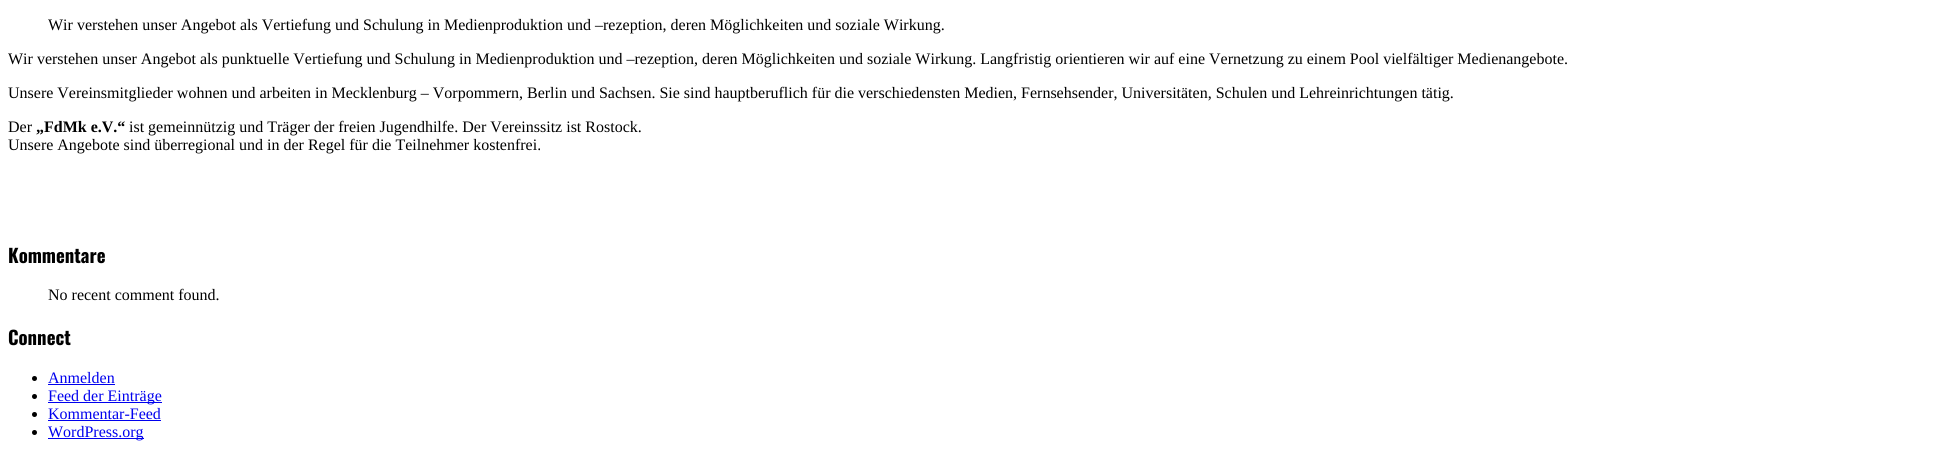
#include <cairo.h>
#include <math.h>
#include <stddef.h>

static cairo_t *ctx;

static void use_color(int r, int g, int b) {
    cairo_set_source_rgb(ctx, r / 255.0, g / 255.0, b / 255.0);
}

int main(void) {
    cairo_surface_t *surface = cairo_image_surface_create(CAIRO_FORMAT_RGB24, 1960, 474);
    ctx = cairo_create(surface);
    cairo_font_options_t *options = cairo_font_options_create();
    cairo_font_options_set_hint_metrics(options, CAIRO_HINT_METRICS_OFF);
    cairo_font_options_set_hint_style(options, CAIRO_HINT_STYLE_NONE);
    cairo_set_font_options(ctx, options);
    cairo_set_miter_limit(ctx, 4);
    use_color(255, 255, 255);
    cairo_paint(ctx);
    cairo_select_font_face(ctx, "Liberation Serif", CAIRO_FONT_SLANT_NORMAL, CAIRO_FONT_WEIGHT_NORMAL);
    cairo_set_font_size(ctx, 16);
    use_color(0, 0, 0);
    cairo_move_to(ctx, 48, 30);
    cairo_show_text(ctx, "Wir verstehen unser Angebot als Vertiefung und Schulung in Medienproduktion und –rezeption, deren Möglichkeiten und soziale Wirkung.");
    cairo_move_to(ctx, 8, 64);
    cairo_show_text(ctx, "Wir verstehen unser Angebot als punktuelle Vertiefung und Schulung in Medienproduktion und –rezeption, deren Möglichkeiten und soziale Wirkung. Langfristig orientieren wir auf eine Vernetzung zu einem Pool vielfältiger Medienangebote.");
    cairo_move_to(ctx, 8, 98);
    cairo_show_text(ctx, "Unsere Vereinsmitglieder wohnen und arbeiten in Mecklenburg – Vorpommern, Berlin und Sachsen. Sie sind hauptberuflich für die verschiedensten Medien, Fernsehsender, Universitäten, Schulen und Lehreinrichtungen tätig.");
    cairo_move_to(ctx, 8, 132);
    cairo_show_text(ctx, "Der");
    cairo_select_font_face(ctx, "Liberation Serif", CAIRO_FONT_SLANT_NORMAL, CAIRO_FONT_WEIGHT_BOLD);
    cairo_move_to(ctx, 36, 132);
    cairo_show_text(ctx, "„FdMk e.V.“");
    cairo_select_font_face(ctx, "Liberation Serif", CAIRO_FONT_SLANT_NORMAL, CAIRO_FONT_WEIGHT_NORMAL);
    cairo_move_to(ctx, 129, 132);
    cairo_show_text(ctx, "ist gemeinnützig und Träger der freien Jugendhilfe. Der Vereinssitz ist Rostock.");
    cairo_move_to(ctx, 8, 150);
    cairo_show_text(ctx, "Unsere Angebote sind überregional und in der Regel für die Teilnehmer kostenfrei.");
    cairo_select_font_face(ctx, "Oswald", CAIRO_FONT_SLANT_NORMAL, CAIRO_FONT_WEIGHT_BOLD);
    cairo_set_font_size(ctx, 18.75);
    cairo_move_to(ctx, 8, 263);
    cairo_show_text(ctx, "Kommentare");
    cairo_select_font_face(ctx, "Liberation Serif", CAIRO_FONT_SLANT_NORMAL, CAIRO_FONT_WEIGHT_NORMAL);
    cairo_set_font_size(ctx, 16);
    cairo_move_to(ctx, 48, 300);
    cairo_show_text(ctx, "No recent comment found.");
    cairo_select_font_face(ctx, "Oswald", CAIRO_FONT_SLANT_NORMAL, CAIRO_FONT_WEIGHT_BOLD);
    cairo_set_font_size(ctx, 18.75);
    cairo_move_to(ctx, 8, 345);
    cairo_show_text(ctx, "Connect");
    cairo_new_path(ctx);
    cairo_arc(ctx, 34.5, 378.5, 2.5, 0, 2 * M_PI);
    cairo_fill(ctx);
    cairo_select_font_face(ctx, "Liberation Serif", CAIRO_FONT_SLANT_NORMAL, CAIRO_FONT_WEIGHT_NORMAL);
    cairo_set_font_size(ctx, 16);
    use_color(0, 0, 238);
    cairo_move_to(ctx, 48, 383);
    cairo_show_text(ctx, "Anmelden");
    cairo_rectangle(ctx, 48, 384, 67, 1);
    cairo_fill(ctx);
    use_color(0, 0, 0);
    cairo_arc(ctx, 34.5, 396.5, 2.5, 0, 2 * M_PI);
    cairo_fill(ctx);
    use_color(0, 0, 238);
    cairo_rectangle(ctx, 48, 402, 114, 1);
    cairo_fill(ctx);
    cairo_move_to(ctx, 48, 401);
    cairo_show_text(ctx, "Feed der Einträge");
    use_color(0, 0, 0);
    cairo_new_path(ctx);
    cairo_arc(ctx, 34.5, 414.5, 2.5, 0, 2 * M_PI);
    cairo_fill(ctx);
    use_color(0, 0, 238);
    cairo_move_to(ctx, 48, 419);
    cairo_show_text(ctx, "Kommentar-Feed");
    cairo_rectangle(ctx, 48, 420, 113, 1);
    cairo_fill(ctx);
    use_color(0, 0, 0);
    cairo_arc(ctx, 34.5, 432.5, 2.5, 0, 2 * M_PI);
    cairo_fill(ctx);
    use_color(0, 0, 238);
    cairo_rectangle(ctx, 48, 438, 96, 1);
    cairo_fill(ctx);
    cairo_move_to(ctx, 48, 437);
    cairo_show_text(ctx, "WordPress.org");
    cairo_surface_write_to_png(surface, "result.png");
    cairo_font_options_destroy(options);
    cairo_destroy(ctx);
    cairo_surface_destroy(surface);
    return 0;
}
